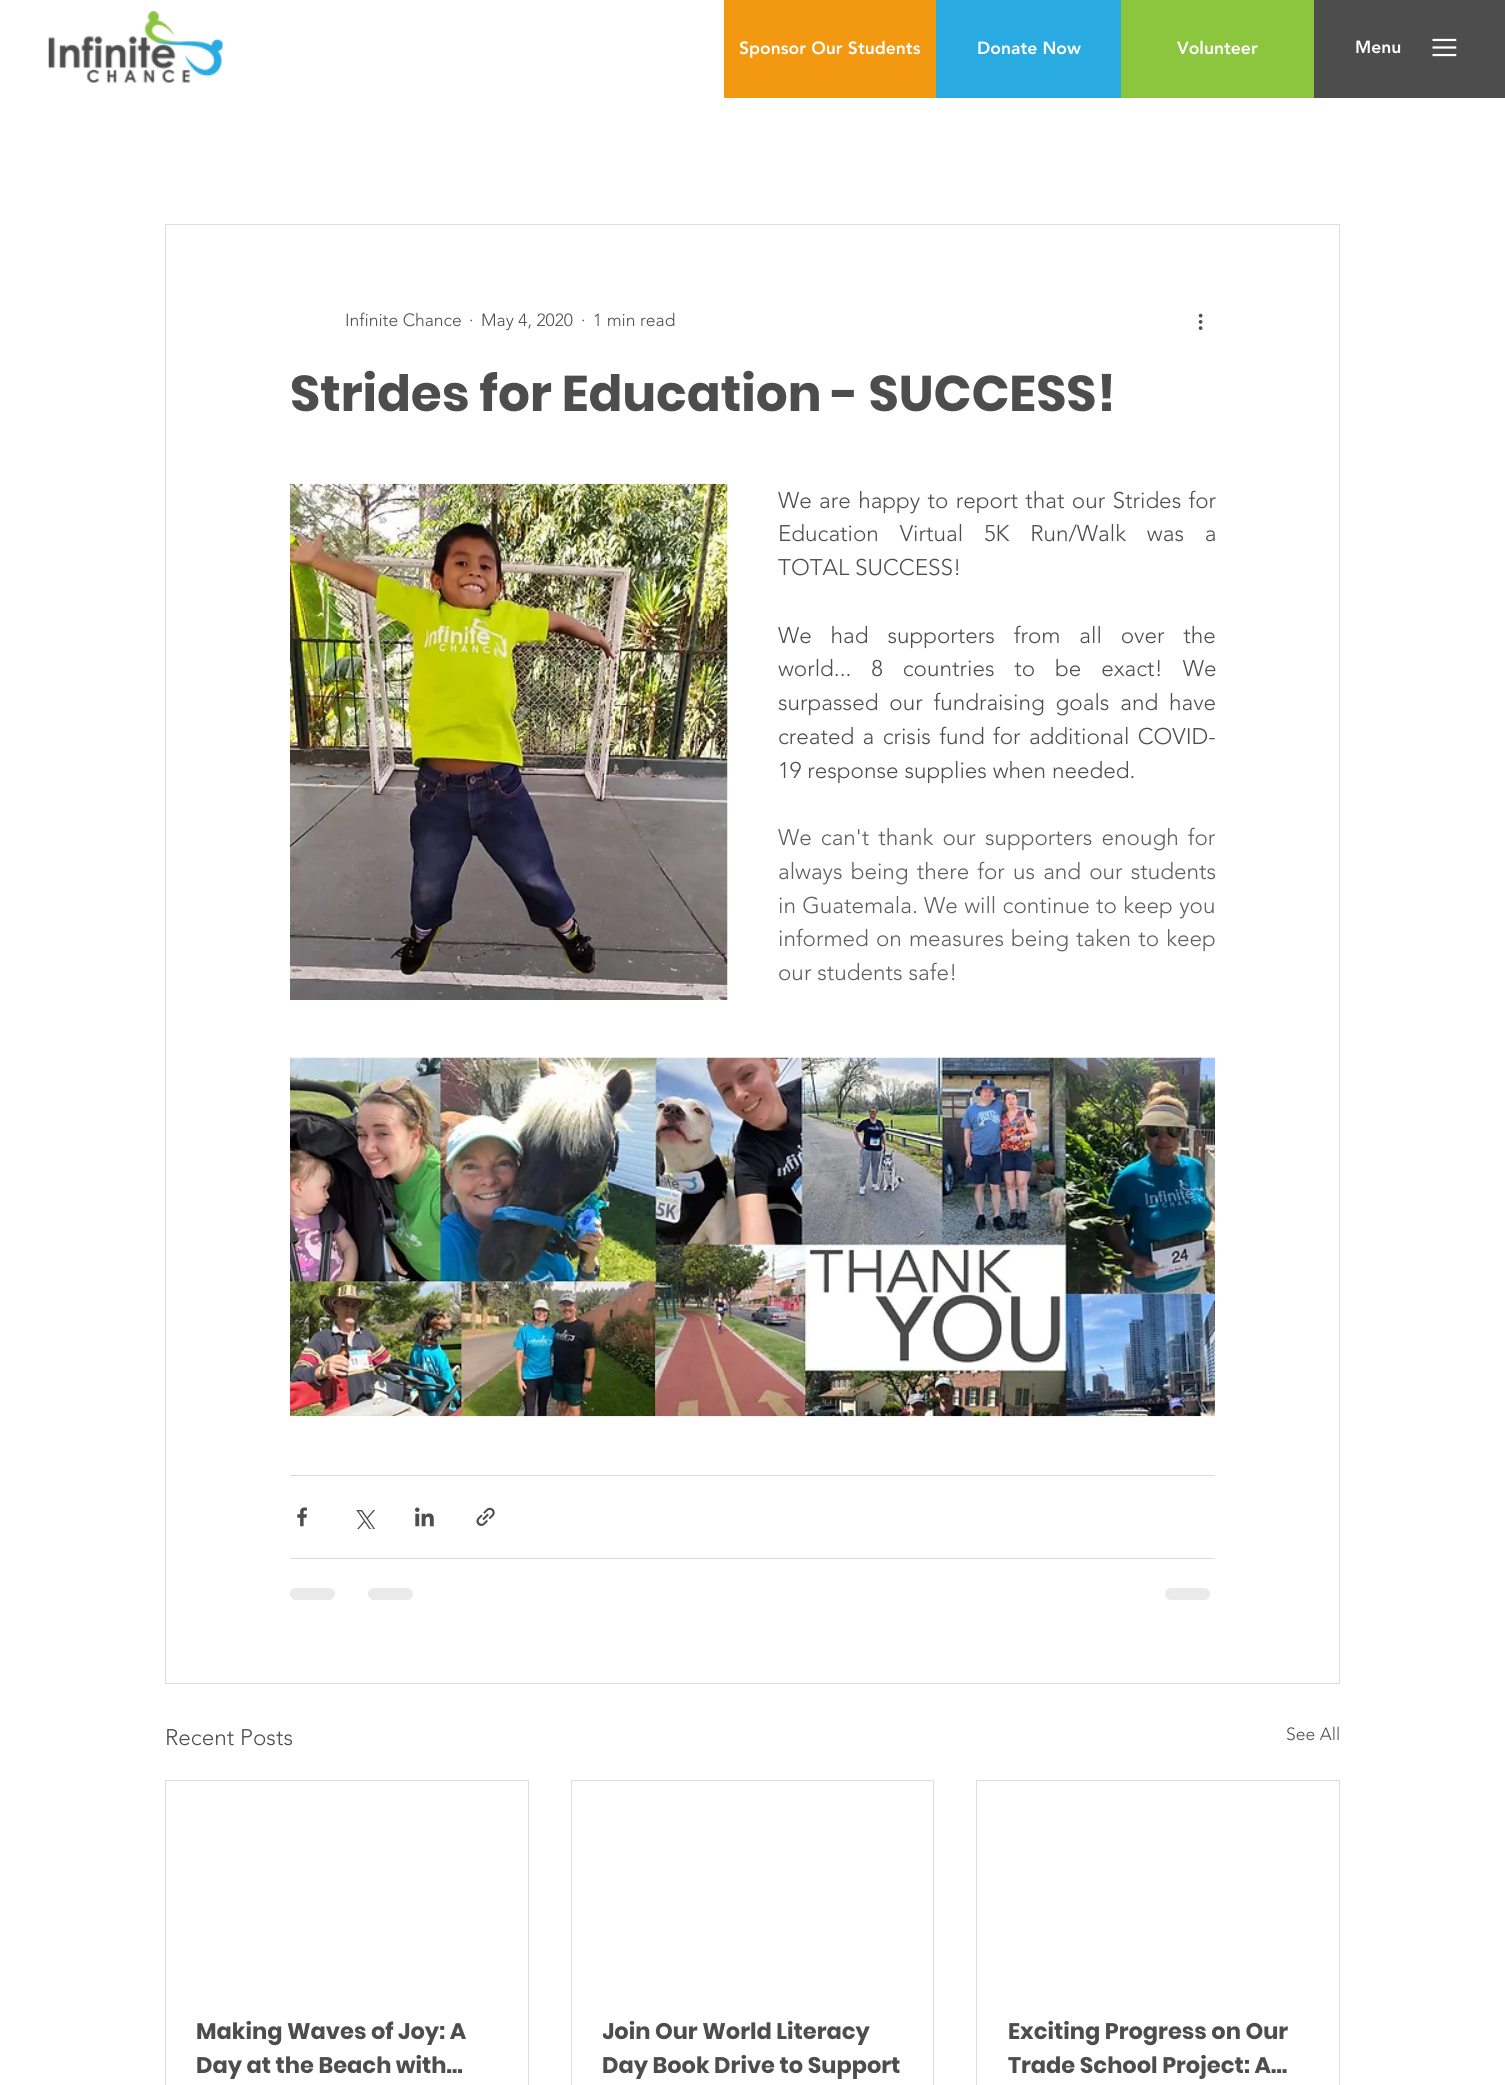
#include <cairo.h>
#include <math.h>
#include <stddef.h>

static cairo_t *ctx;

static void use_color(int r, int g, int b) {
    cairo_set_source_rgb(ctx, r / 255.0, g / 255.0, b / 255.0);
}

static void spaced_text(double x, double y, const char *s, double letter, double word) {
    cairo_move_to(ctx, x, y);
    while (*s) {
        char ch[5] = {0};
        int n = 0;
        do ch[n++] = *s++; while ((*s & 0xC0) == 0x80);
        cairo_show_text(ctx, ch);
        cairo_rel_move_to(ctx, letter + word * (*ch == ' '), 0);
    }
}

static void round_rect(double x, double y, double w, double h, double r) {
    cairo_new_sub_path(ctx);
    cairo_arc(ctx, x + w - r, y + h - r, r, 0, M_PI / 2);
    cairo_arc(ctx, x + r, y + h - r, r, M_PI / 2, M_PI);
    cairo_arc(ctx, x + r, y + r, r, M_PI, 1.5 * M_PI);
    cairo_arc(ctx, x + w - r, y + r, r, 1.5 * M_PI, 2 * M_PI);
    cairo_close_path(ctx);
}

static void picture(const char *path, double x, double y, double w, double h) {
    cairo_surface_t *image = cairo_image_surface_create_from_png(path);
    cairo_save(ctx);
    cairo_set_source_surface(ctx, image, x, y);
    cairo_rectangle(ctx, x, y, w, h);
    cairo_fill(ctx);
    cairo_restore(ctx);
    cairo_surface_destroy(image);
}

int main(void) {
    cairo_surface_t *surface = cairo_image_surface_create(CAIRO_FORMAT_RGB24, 1505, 2085);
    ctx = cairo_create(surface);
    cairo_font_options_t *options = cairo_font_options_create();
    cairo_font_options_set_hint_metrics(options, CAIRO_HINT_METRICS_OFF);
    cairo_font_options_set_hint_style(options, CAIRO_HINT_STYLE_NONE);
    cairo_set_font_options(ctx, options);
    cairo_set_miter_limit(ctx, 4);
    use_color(255, 255, 255);
    cairo_paint(ctx);
    picture("img1.png", 48, 11, 175, 72);
    use_color(242, 152, 17);
    cairo_rectangle(ctx, 724, 0, 212, 98);
    cairo_fill(ctx);
    cairo_select_font_face(ctx, "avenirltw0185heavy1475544 Black", CAIRO_FONT_SLANT_NORMAL, CAIRO_FONT_WEIGHT_NORMAL);
    cairo_set_font_size(ctx, 17.5);
    use_color(255, 255, 255);
    cairo_move_to(ctx, 739, 54);
    cairo_show_text(ctx, "Sponsor Our Students");
    use_color(41, 171, 226);
    cairo_rectangle(ctx, 936, 0, 185, 98);
    cairo_fill(ctx);
    use_color(255, 255, 255);
    cairo_move_to(ctx, 977, 54);
    cairo_show_text(ctx, "Donate Now");
    use_color(140, 198, 63);
    cairo_rectangle(ctx, 1121, 0, 193, 98);
    cairo_fill(ctx);
    use_color(255, 255, 255);
    cairo_move_to(ctx, 1177, 54);
    cairo_show_text(ctx, "Volunteer");
    use_color(77, 77, 77);
    cairo_rectangle(ctx, 1314, 0, 191, 98);
    cairo_fill(ctx);
    use_color(255, 255, 255);
    cairo_move_to(ctx, 1355, 53);
    cairo_show_text(ctx, "Menu");
    picture("img2.png", 1432, 38, 25, 19);
    cairo_rectangle(ctx, 165.5, 224.5, 1174, 1459);
    use_color(222, 222, 222);
    cairo_set_line_width(ctx, 1);
    cairo_stroke(ctx);
    cairo_select_font_face(ctx, "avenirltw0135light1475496 Light", CAIRO_FONT_SLANT_NORMAL, CAIRO_FONT_WEIGHT_NORMAL);
    use_color(77, 77, 77);
    cairo_move_to(ctx, 345, 326);
    cairo_show_text(ctx, "Infinite Chance");
    cairo_move_to(ctx, 469, 326);
    cairo_show_text(ctx, "·");
    cairo_move_to(ctx, 481, 326);
    cairo_show_text(ctx, "May 4, 2020");
    cairo_move_to(ctx, 581, 326);
    cairo_show_text(ctx, "·");
    cairo_move_to(ctx, 593, 326);
    cairo_show_text(ctx, "1 min read");
    picture("img3.png", 1198, 313, 5, 17);
    cairo_select_font_face(ctx, "Poppins", CAIRO_FONT_SLANT_NORMAL, CAIRO_FONT_WEIGHT_BOLD);
    cairo_set_font_size(ctx, 50);
    cairo_move_to(ctx, 290, 411);
    cairo_show_text(ctx, "Strides for Education - SUCCESS!");
    picture("img4.png", 290, 483, 438, 517);
    cairo_select_font_face(ctx, "avenirltw0135light1475496 Light", CAIRO_FONT_SLANT_NORMAL, CAIRO_FONT_WEIGHT_NORMAL);
    cairo_set_font_size(ctx, 22.5);
    spaced_text(778, 508, "We are happy to report that our Strides for", 0, 1.5);
    spaced_text(778, 541, "Education Virtual 5K Run/Walk was a", 0, 15);
    cairo_move_to(ctx, 778, 575);
    cairo_show_text(ctx, "TOTAL SUCCESS!");
    spaced_text(778, 643, "We had supporters from all over the", 0, 13);
    spaced_text(778, 676, "world... 8 countries to be exact! We", 0, 14);
    spaced_text(778, 710, "surpassed our fundraising goals and have", 0, 5);
    spaced_text(778, 744, "created a crisis fund for additional COVID-", 0, 2.5);
    cairo_move_to(ctx, 778, 778);
    cairo_show_text(ctx, "19 response supplies when needed.");
    use_color(96, 94, 94);
    spaced_text(778, 845, "We can't thank our supporters enough for", 0, 3.25);
    spaced_text(778, 879, "always being there for us and our students", 0, 2.25);
    spaced_text(778, 913, "in Guatemala. We will continue to keep you", 0, 0.5);
    spaced_text(778, 946, "informed on measures being taken to keep", 0, 1.25);
    cairo_move_to(ctx, 778, 980);
    cairo_show_text(ctx, "our students safe!");
    picture("img5.png", 290, 1057, 925, 360);
    use_color(219, 219, 219);
    cairo_rectangle(ctx, 290, 1475, 925, 1);
    cairo_fill(ctx);
    picture("img6.png", 297, 1507, 10, 20);
    picture("img7.png", 356, 1510, 19, 19);
    picture("img8.png", 415, 1507, 19, 20);
    picture("img9.png", 476, 1507, 19, 19);
    cairo_rectangle(ctx, 290, 1558, 925, 1);
    cairo_fill(ctx);
    use_color(234, 234, 234);
    round_rect(290, 1588, 45, 12, 6);
    cairo_fill(ctx);
    round_rect(368, 1588, 45, 12, 6);
    cairo_fill(ctx);
    round_rect(1165, 1588, 45, 12, 6);
    cairo_fill(ctx);
    use_color(77, 77, 77);
    cairo_move_to(ctx, 165, 1745);
    cairo_show_text(ctx, "Recent Posts");
    cairo_set_font_size(ctx, 17.5);
    cairo_move_to(ctx, 1286, 1740);
    cairo_show_text(ctx, "See All");
    cairo_rectangle(ctx, 165.5, 1780.5, 363, 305);
    use_color(222, 222, 222);
    cairo_stroke(ctx);
    cairo_select_font_face(ctx, "Poppins", CAIRO_FONT_SLANT_NORMAL, CAIRO_FONT_WEIGHT_BOLD);
    cairo_set_font_size(ctx, 22.5);
    use_color(77, 77, 77);
    cairo_move_to(ctx, 196, 2039);
    cairo_show_text(ctx, "Making Waves of Joy: A");
    cairo_move_to(ctx, 196, 2073);
    cairo_show_text(ctx, "Day at the Beach with…");
    cairo_rectangle(ctx, 571.5, 1780.5, 362, 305);
    use_color(222, 222, 222);
    cairo_stroke(ctx);
    cairo_save(ctx);
    cairo_rectangle(ctx, 603, 2015, 300, 68);
    cairo_clip(ctx);
    use_color(77, 77, 77);
    cairo_move_to(ctx, 602, 2039);
    cairo_show_text(ctx, "Join Our World Literacy");
    cairo_restore(ctx);
    use_color(77, 77, 77);
    cairo_move_to(ctx, 602, 2073);
    cairo_show_text(ctx, "Day Book Drive to Support");
    cairo_rectangle(ctx, 976.5, 1780.5, 363, 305);
    use_color(222, 222, 222);
    cairo_stroke(ctx);
    use_color(77, 77, 77);
    cairo_move_to(ctx, 1008, 2039);
    cairo_show_text(ctx, "Exciting Progress on Our");
    cairo_move_to(ctx, 1008, 2073);
    cairo_show_text(ctx, "Trade School Project: A…");
    cairo_surface_write_to_png(surface, "result.png");
    cairo_font_options_destroy(options);
    cairo_destroy(ctx);
    cairo_surface_destroy(surface);
    return 0;
}
